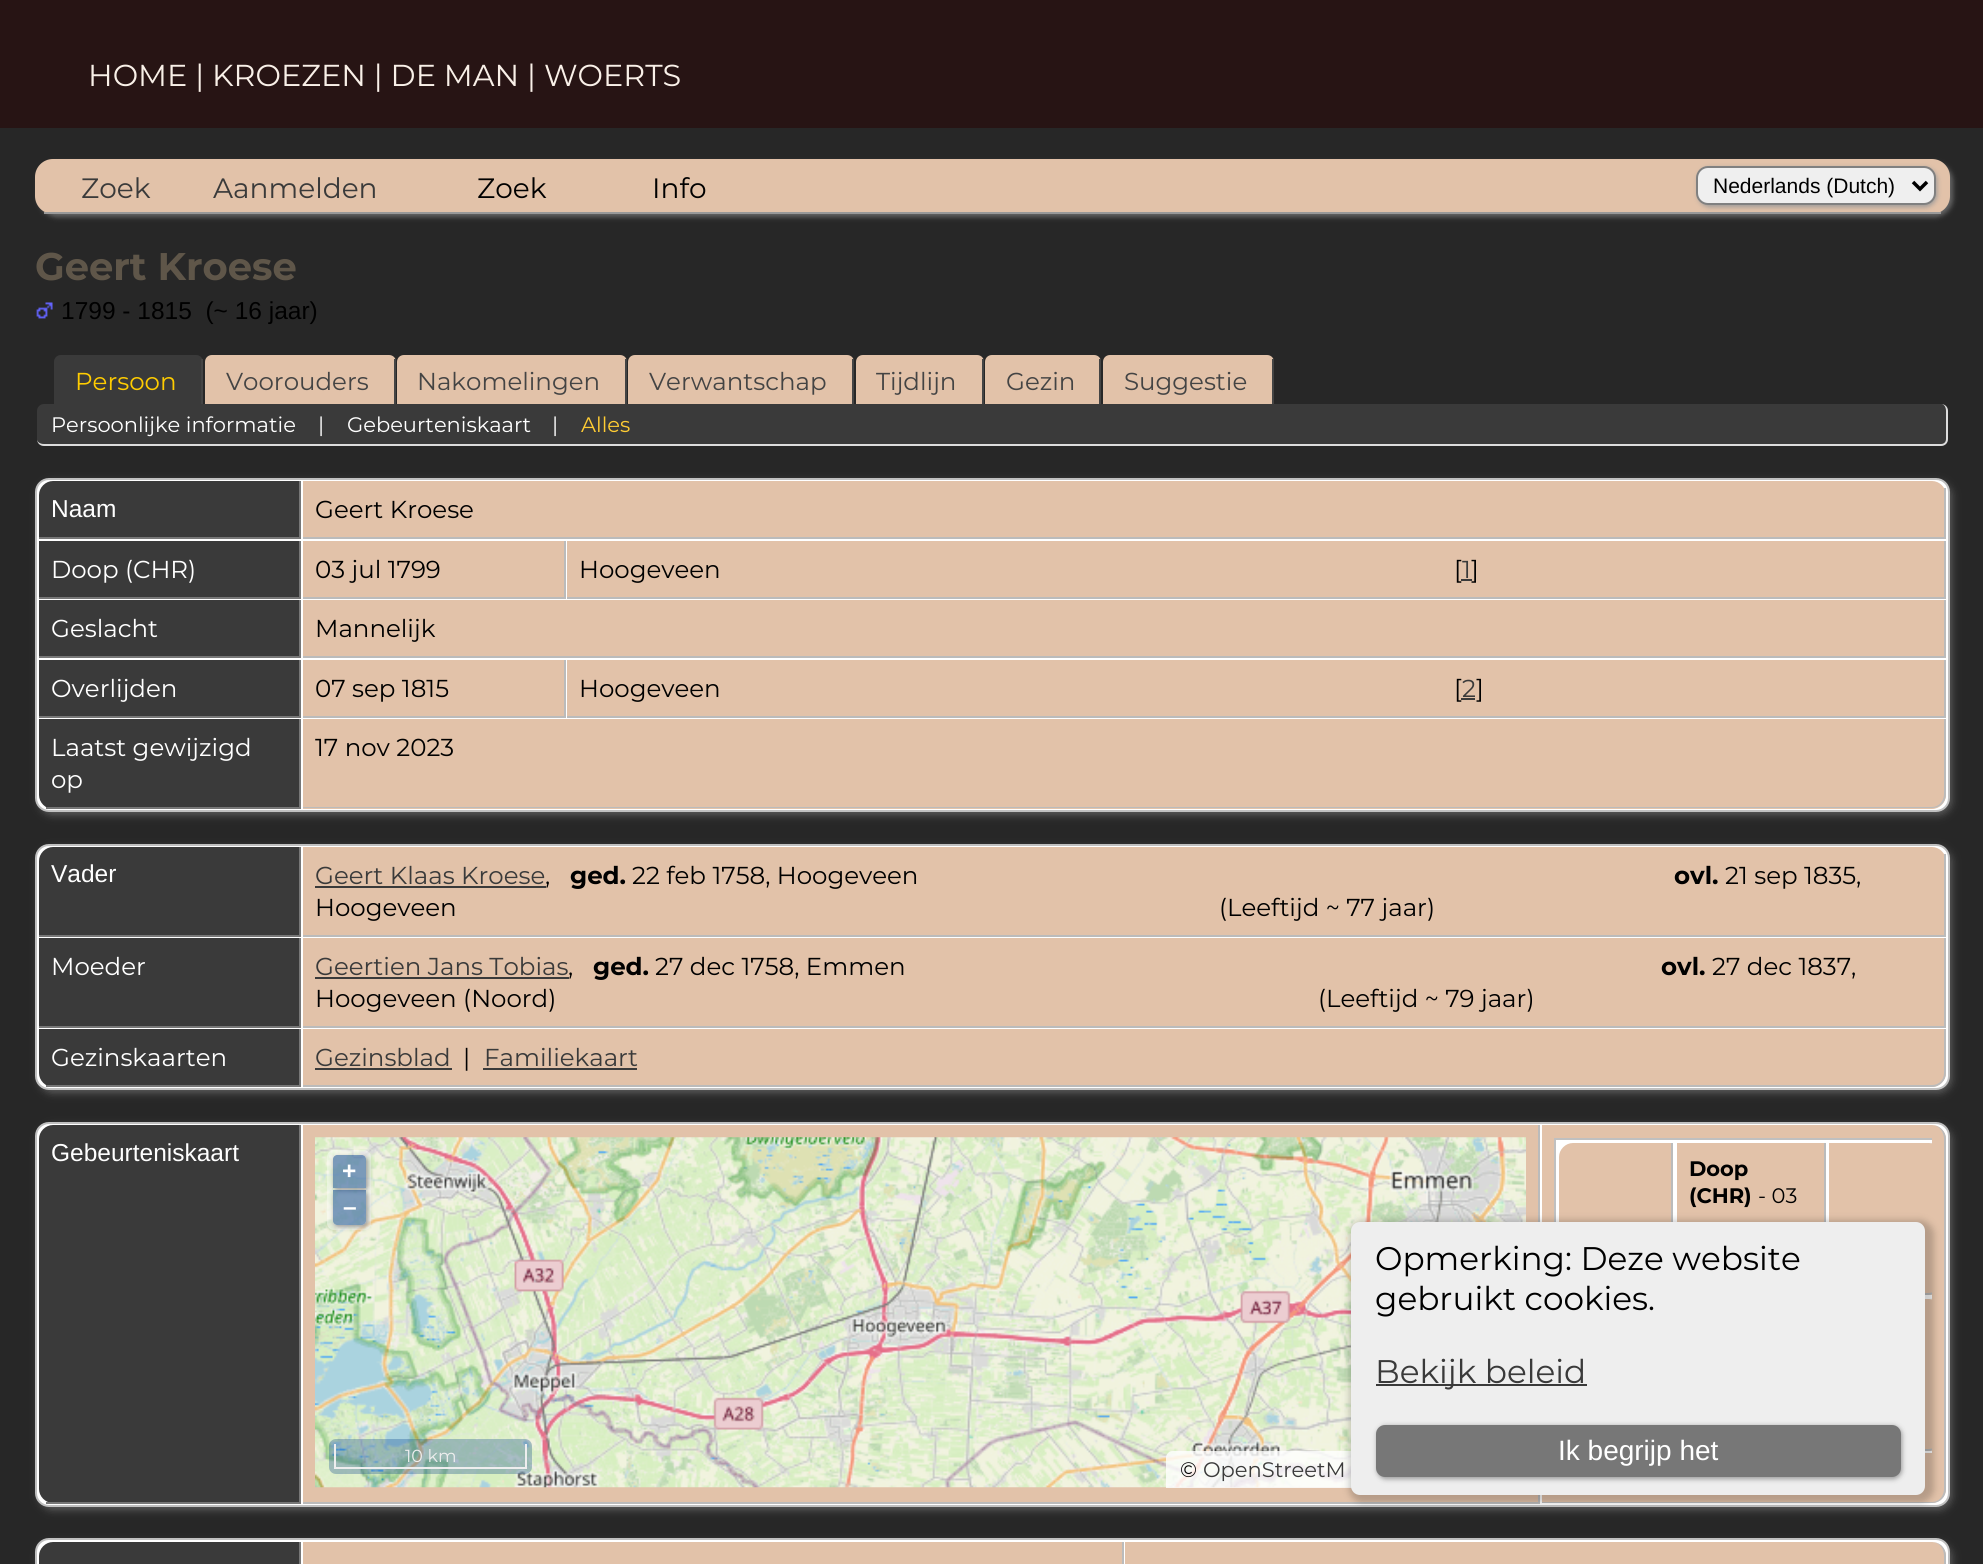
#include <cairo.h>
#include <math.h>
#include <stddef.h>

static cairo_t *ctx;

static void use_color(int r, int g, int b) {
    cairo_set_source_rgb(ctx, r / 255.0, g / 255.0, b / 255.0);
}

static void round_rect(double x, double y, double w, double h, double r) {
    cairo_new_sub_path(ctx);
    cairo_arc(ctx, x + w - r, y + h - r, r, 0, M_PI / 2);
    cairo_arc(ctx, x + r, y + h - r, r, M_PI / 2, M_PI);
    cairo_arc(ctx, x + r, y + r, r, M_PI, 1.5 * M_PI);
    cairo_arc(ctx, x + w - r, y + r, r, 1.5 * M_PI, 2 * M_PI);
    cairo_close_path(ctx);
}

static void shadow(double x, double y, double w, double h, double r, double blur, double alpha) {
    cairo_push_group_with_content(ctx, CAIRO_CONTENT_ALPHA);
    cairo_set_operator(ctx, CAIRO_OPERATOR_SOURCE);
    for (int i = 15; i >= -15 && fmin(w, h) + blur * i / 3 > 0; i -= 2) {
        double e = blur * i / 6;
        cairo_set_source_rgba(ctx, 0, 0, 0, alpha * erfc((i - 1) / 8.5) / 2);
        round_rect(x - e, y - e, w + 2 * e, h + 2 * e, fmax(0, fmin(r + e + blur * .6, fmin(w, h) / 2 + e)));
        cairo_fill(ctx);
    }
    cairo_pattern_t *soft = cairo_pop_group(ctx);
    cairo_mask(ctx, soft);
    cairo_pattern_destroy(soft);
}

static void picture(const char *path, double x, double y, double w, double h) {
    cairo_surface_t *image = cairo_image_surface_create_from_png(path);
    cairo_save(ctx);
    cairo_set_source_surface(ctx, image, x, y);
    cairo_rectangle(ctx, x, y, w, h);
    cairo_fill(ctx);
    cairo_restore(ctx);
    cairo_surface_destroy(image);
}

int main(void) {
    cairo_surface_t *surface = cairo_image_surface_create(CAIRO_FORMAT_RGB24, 1983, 1564);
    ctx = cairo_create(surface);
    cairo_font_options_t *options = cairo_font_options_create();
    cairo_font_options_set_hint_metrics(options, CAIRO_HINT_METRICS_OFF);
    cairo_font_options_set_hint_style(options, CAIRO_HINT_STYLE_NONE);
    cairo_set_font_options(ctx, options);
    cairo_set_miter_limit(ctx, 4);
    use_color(39, 39, 39);
    cairo_paint(ctx);
    use_color(39, 20, 20);
    cairo_rectangle(ctx, 0, 0, 1983, 128);
    cairo_fill(ctx);
    cairo_select_font_face(ctx, "Montserrat", CAIRO_FONT_SLANT_NORMAL, CAIRO_FONT_WEIGHT_NORMAL);
    cairo_set_font_size(ctx, 30.3);
    use_color(249, 240, 232);
    cairo_move_to(ctx, 88, 86);
    cairo_show_text(ctx, "HOME | KROEZEN | DE MAN | WOERTS");
    use_color(102, 102, 102);
    shadow(39, 163, 1914, 54, 18, 2.5, 1);
    use_color(226, 194, 169);
    round_rect(35, 159, 1915, 55, 18);
    cairo_fill(ctx);
    use_color(153, 153, 153);
    cairo_rectangle(ctx, 44, 212, 1897, 2);
    cairo_fill(ctx);
    cairo_set_font_size(ctx, 28);
    use_color(58, 58, 58);
    cairo_move_to(ctx, 81, 198);
    cairo_show_text(ctx, "Zoek");
    cairo_move_to(ctx, 213, 198);
    cairo_show_text(ctx, "Aanmelden");
    use_color(0, 0, 0);
    cairo_move_to(ctx, 477, 198);
    cairo_show_text(ctx, "Zoek");
    cairo_move_to(ctx, 652, 198);
    cairo_show_text(ctx, "Info");
    use_color(153, 153, 153);
    shadow(1698, 168, 239, 39, 12, 2.5, 1);
    use_color(239, 239, 239);
    round_rect(1697, 167, 238, 37, 11);
    cairo_fill_preserve(ctx);
    use_color(128, 128, 128);
    cairo_stroke(ctx);
    cairo_new_path(ctx);
    cairo_move_to(ctx, 1913, 182);
    cairo_line_to(ctx, 1920, 189);
    cairo_line_to(ctx, 1927, 182);
    use_color(0, 0, 0);
    cairo_set_line_width(ctx, 3.5);
    cairo_stroke(ctx);
    cairo_select_font_face(ctx, "Liberation Sans", CAIRO_FONT_SLANT_NORMAL, CAIRO_FONT_WEIGHT_NORMAL);
    cairo_set_font_size(ctx, 21);
    cairo_move_to(ctx, 1713, 193);
    cairo_show_text(ctx, "Nederlands (Dutch)");
    cairo_select_font_face(ctx, "Montserrat", CAIRO_FONT_SLANT_NORMAL, CAIRO_FONT_WEIGHT_BOLD);
    cairo_set_font_size(ctx, 38.5);
    use_color(95, 86, 73);
    cairo_move_to(ctx, 35, 280);
    cairo_show_text(ctx, "Geert Kroese");
    picture("img1.png", 36, 302, 17, 17);
    cairo_select_font_face(ctx, "Liberation Sans", CAIRO_FONT_SLANT_NORMAL, CAIRO_FONT_WEIGHT_NORMAL);
    cairo_set_font_size(ctx, 24.5);
    use_color(0, 0, 0);
    cairo_move_to(ctx, 61, 319);
    cairo_show_text(ctx, "1799 - 1815  (~ 16 jaar)");
    use_color(58, 58, 58);
    cairo_new_path(ctx);
    cairo_move_to(ctx, 61, 355);
    cairo_line_to(ctx, 196, 355);
    cairo_curve_to(ctx, 200, 355, 203, 358, 203, 362);
    cairo_line_to(ctx, 203, 404);
    cairo_line_to(ctx, 54, 404);
    cairo_line_to(ctx, 54, 362);
    cairo_curve_to(ctx, 54, 358, 57, 355, 61, 355);
    cairo_close_path(ctx);
    cairo_fill(ctx);
    use_color(68, 68, 68);
    cairo_rectangle(ctx, 201, 359, 2, 45);
    cairo_fill(ctx);
    cairo_select_font_face(ctx, "Montserrat", CAIRO_FONT_SLANT_NORMAL, CAIRO_FONT_WEIGHT_NORMAL);
    use_color(255, 204, 0);
    cairo_move_to(ctx, 75, 390);
    cairo_show_text(ctx, "Persoon");
    use_color(226, 194, 169);
    cairo_new_path(ctx);
    cairo_move_to(ctx, 212, 355);
    cairo_line_to(ctx, 389, 355);
    cairo_curve_to(ctx, 393, 355, 396, 358, 396, 362);
    cairo_line_to(ctx, 396, 404);
    cairo_line_to(ctx, 205, 404);
    cairo_line_to(ctx, 205, 362);
    cairo_curve_to(ctx, 205, 358, 208, 355, 212, 355);
    cairo_close_path(ctx);
    cairo_fill(ctx);
    use_color(68, 68, 68);
    cairo_rectangle(ctx, 394, 359, 2, 45);
    cairo_fill(ctx);
    cairo_move_to(ctx, 226, 390);
    cairo_show_text(ctx, "Voorouders");
    use_color(226, 194, 169);
    cairo_new_path(ctx);
    cairo_move_to(ctx, 404, 355);
    cairo_line_to(ctx, 620, 355);
    cairo_curve_to(ctx, 624, 355, 627, 358, 627, 362);
    cairo_line_to(ctx, 627, 404);
    cairo_line_to(ctx, 397, 404);
    cairo_line_to(ctx, 397, 362);
    cairo_curve_to(ctx, 397, 358, 400, 355, 404, 355);
    cairo_close_path(ctx);
    cairo_fill(ctx);
    use_color(68, 68, 68);
    cairo_rectangle(ctx, 625, 359, 2, 45);
    cairo_fill(ctx);
    cairo_move_to(ctx, 417, 390);
    cairo_show_text(ctx, "Nakomelingen");
    use_color(226, 194, 169);
    cairo_new_path(ctx);
    cairo_move_to(ctx, 635, 355);
    cairo_line_to(ctx, 847, 355);
    cairo_curve_to(ctx, 851, 355, 854, 358, 854, 362);
    cairo_line_to(ctx, 854, 404);
    cairo_line_to(ctx, 628, 404);
    cairo_line_to(ctx, 628, 362);
    cairo_curve_to(ctx, 628, 358, 631, 355, 635, 355);
    cairo_close_path(ctx);
    cairo_fill(ctx);
    use_color(68, 68, 68);
    cairo_rectangle(ctx, 852, 359, 2, 45);
    cairo_fill(ctx);
    cairo_move_to(ctx, 649, 390);
    cairo_show_text(ctx, "Verwantschap");
    use_color(226, 194, 169);
    cairo_new_path(ctx);
    cairo_move_to(ctx, 863, 355);
    cairo_line_to(ctx, 977, 355);
    cairo_curve_to(ctx, 981, 355, 984, 358, 984, 362);
    cairo_line_to(ctx, 984, 404);
    cairo_line_to(ctx, 856, 404);
    cairo_line_to(ctx, 856, 362);
    cairo_curve_to(ctx, 856, 358, 859, 355, 863, 355);
    cairo_close_path(ctx);
    cairo_fill(ctx);
    use_color(68, 68, 68);
    cairo_rectangle(ctx, 982, 359, 2, 45);
    cairo_fill(ctx);
    cairo_move_to(ctx, 876, 390);
    cairo_show_text(ctx, "Tijdlijn");
    use_color(226, 194, 169);
    cairo_new_path(ctx);
    cairo_move_to(ctx, 992, 355);
    cairo_line_to(ctx, 1094, 355);
    cairo_curve_to(ctx, 1098, 355, 1101, 358, 1101, 362);
    cairo_line_to(ctx, 1101, 404);
    cairo_line_to(ctx, 985, 404);
    cairo_line_to(ctx, 985, 362);
    cairo_curve_to(ctx, 985, 358, 988, 355, 992, 355);
    cairo_close_path(ctx);
    cairo_fill(ctx);
    use_color(68, 68, 68);
    cairo_rectangle(ctx, 1099, 359, 2, 45);
    cairo_fill(ctx);
    cairo_move_to(ctx, 1006, 390);
    cairo_show_text(ctx, "Gezin");
    use_color(226, 194, 169);
    cairo_new_path(ctx);
    cairo_move_to(ctx, 1110, 355);
    cairo_line_to(ctx, 1267, 355);
    cairo_curve_to(ctx, 1271, 355, 1274, 358, 1274, 362);
    cairo_line_to(ctx, 1274, 404);
    cairo_line_to(ctx, 1103, 404);
    cairo_line_to(ctx, 1103, 362);
    cairo_curve_to(ctx, 1103, 358, 1106, 355, 1110, 355);
    cairo_close_path(ctx);
    cairo_fill(ctx);
    use_color(68, 68, 68);
    cairo_rectangle(ctx, 1272, 359, 2, 45);
    cairo_fill(ctx);
    cairo_move_to(ctx, 1124, 390);
    cairo_show_text(ctx, "Suggestie");
    use_color(58, 58, 58);
    round_rect(37, 404, 1911, 42, 7);
    cairo_fill(ctx);
    use_color(221, 221, 221);
    cairo_set_fill_rule(ctx, CAIRO_FILL_RULE_EVEN_ODD);
    cairo_new_path(ctx);
    cairo_move_to(ctx, 44, 404);
    cairo_line_to(ctx, 1941, 404);
    cairo_curve_to(ctx, 1945, 404, 1948, 407, 1948, 411);
    cairo_line_to(ctx, 1948, 439);
    cairo_curve_to(ctx, 1948, 443, 1945, 446, 1941, 446);
    cairo_line_to(ctx, 44, 446);
    cairo_curve_to(ctx, 40, 446, 37, 443, 37, 439);
    cairo_line_to(ctx, 37, 411);
    cairo_curve_to(ctx, 37, 407, 40, 404, 44, 404);
    cairo_close_path(ctx);
    cairo_move_to(ctx, 44, 404);
    cairo_line_to(ctx, 1941, 404);
    cairo_curve_to(ctx, 1944, 404, 1946, 407, 1946, 411);
    cairo_line_to(ctx, 1946, 439);
    cairo_curve_to(ctx, 1946, 442, 1944, 444, 1941, 444);
    cairo_line_to(ctx, 44, 444);
    cairo_curve_to(ctx, 40, 444, 37, 442, 37, 439);
    cairo_line_to(ctx, 37, 411);
    cairo_curve_to(ctx, 37, 407, 40, 404, 44, 404);
    cairo_close_path(ctx);
    cairo_fill(ctx);
    cairo_set_font_size(ctx, 21);
    use_color(255, 255, 255);
    cairo_move_to(ctx, 51, 432);
    cairo_show_text(ctx, "Persoonlijke informatie");
    cairo_move_to(ctx, 318, 432);
    cairo_show_text(ctx, "|");
    cairo_move_to(ctx, 347, 432);
    cairo_show_text(ctx, "Gebeurteniskaart");
    cairo_move_to(ctx, 552, 432);
    cairo_show_text(ctx, "|");
    use_color(255, 204, 51);
    cairo_move_to(ctx, 581, 432);
    cairo_show_text(ctx, "Alles");
    use_color(102, 102, 102);
    shadow(40, 483, 1911, 331, 12, 4.5, 1);
    use_color(255, 255, 255);
    round_rect(36, 479, 1913, 332, 13);
    cairo_fill_preserve(ctx);
    use_color(192, 192, 192);
    cairo_set_line_width(ctx, 2);
    cairo_stroke(ctx);
    use_color(58, 58, 58);
    cairo_new_path(ctx);
    cairo_move_to(ctx, 53, 481);
    cairo_line_to(ctx, 301, 481);
    cairo_line_to(ctx, 301, 539);
    cairo_line_to(ctx, 39, 539);
    cairo_line_to(ctx, 39, 495);
    cairo_curve_to(ctx, 39, 487.5, 45.5, 481, 53, 481);
    cairo_close_path(ctx);
    cairo_fill(ctx);
    use_color(119, 119, 119);
    cairo_rectangle(ctx, 299, 481, 2, 58);
    cairo_fill(ctx);
    cairo_rectangle(ctx, 39, 537, 262, 2);
    cairo_fill(ctx);
    cairo_select_font_face(ctx, "Liberation Sans", CAIRO_FONT_SLANT_NORMAL, CAIRO_FONT_WEIGHT_NORMAL);
    cairo_set_font_size(ctx, 24.5);
    use_color(255, 255, 255);
    cairo_move_to(ctx, 51, 517);
    cairo_show_text(ctx, "Naam");
    use_color(226, 194, 169);
    cairo_new_path(ctx);
    cairo_move_to(ctx, 303, 481);
    cairo_line_to(ctx, 1932, 481);
    cairo_curve_to(ctx, 1939.5, 481, 1946, 487.5, 1946, 495);
    cairo_line_to(ctx, 1946, 539);
    cairo_line_to(ctx, 303, 539);
    cairo_close_path(ctx);
    cairo_fill(ctx);
    use_color(187, 187, 187);
    cairo_rectangle(ctx, 1944, 488, 2, 51);
    cairo_fill(ctx);
    cairo_rectangle(ctx, 303, 537, 1643, 2);
    cairo_fill(ctx);
    cairo_select_font_face(ctx, "Montserrat", CAIRO_FONT_SLANT_NORMAL, CAIRO_FONT_WEIGHT_NORMAL);
    use_color(0, 0, 0);
    cairo_move_to(ctx, 315, 518);
    cairo_show_text(ctx, "Geert Kroese");
    use_color(58, 58, 58);
    cairo_rectangle(ctx, 39, 541, 260, 56);
    cairo_fill(ctx);
    use_color(119, 119, 119);
    cairo_rectangle(ctx, 299, 541, 2, 58);
    cairo_fill(ctx);
    cairo_rectangle(ctx, 39, 597, 262, 2);
    cairo_fill(ctx);
    use_color(255, 255, 255);
    cairo_move_to(ctx, 51, 578);
    cairo_show_text(ctx, "Doop (CHR)");
    use_color(226, 194, 169);
    cairo_rectangle(ctx, 303, 541, 261, 56);
    cairo_fill(ctx);
    use_color(187, 187, 187);
    cairo_rectangle(ctx, 564, 541, 2, 58);
    cairo_fill(ctx);
    cairo_rectangle(ctx, 303, 597, 262, 2);
    cairo_fill(ctx);
    use_color(0, 0, 0);
    cairo_move_to(ctx, 315, 578);
    cairo_show_text(ctx, "03 jul 1799");
    use_color(226, 194, 169);
    cairo_rectangle(ctx, 567, 541, 1377, 56);
    cairo_fill(ctx);
    use_color(187, 187, 187);
    cairo_rectangle(ctx, 1944, 541, 2, 58);
    cairo_fill(ctx);
    cairo_rectangle(ctx, 567, 597, 1379, 2);
    cairo_fill(ctx);
    use_color(0, 0, 0);
    cairo_move_to(ctx, 579, 578);
    cairo_show_text(ctx, "Hoogeveen");
    cairo_move_to(ctx, 1454, 578);
    cairo_show_text(ctx, "[");
    use_color(58, 58, 58);
    cairo_move_to(ctx, 1462, 578);
    cairo_show_text(ctx, "1");
    cairo_rectangle(ctx, 1461, 579, 11, 2);
    cairo_fill(ctx);
    use_color(0, 0, 0);
    cairo_move_to(ctx, 1471, 578);
    cairo_show_text(ctx, "]");
    use_color(58, 58, 58);
    cairo_rectangle(ctx, 39, 600, 260, 56);
    cairo_fill(ctx);
    use_color(119, 119, 119);
    cairo_rectangle(ctx, 299, 600, 2, 58);
    cairo_fill(ctx);
    cairo_rectangle(ctx, 39, 656, 262, 2);
    cairo_fill(ctx);
    use_color(255, 255, 255);
    cairo_move_to(ctx, 51, 637);
    cairo_show_text(ctx, "Geslacht");
    use_color(226, 194, 169);
    cairo_rectangle(ctx, 303, 600, 1641, 56);
    cairo_fill(ctx);
    use_color(187, 187, 187);
    cairo_rectangle(ctx, 1944, 600, 2, 58);
    cairo_fill(ctx);
    cairo_rectangle(ctx, 303, 656, 1643, 2);
    cairo_fill(ctx);
    use_color(0, 0, 0);
    cairo_move_to(ctx, 315, 637);
    cairo_show_text(ctx, "Mannelijk");
    use_color(58, 58, 58);
    cairo_rectangle(ctx, 39, 660, 260, 56);
    cairo_fill(ctx);
    use_color(119, 119, 119);
    cairo_rectangle(ctx, 299, 660, 2, 58);
    cairo_fill(ctx);
    cairo_rectangle(ctx, 39, 716, 262, 2);
    cairo_fill(ctx);
    use_color(255, 255, 255);
    cairo_move_to(ctx, 51, 697);
    cairo_show_text(ctx, "Overlijden");
    use_color(226, 194, 169);
    cairo_rectangle(ctx, 303, 660, 261, 56);
    cairo_fill(ctx);
    use_color(187, 187, 187);
    cairo_rectangle(ctx, 564, 660, 2, 58);
    cairo_fill(ctx);
    cairo_rectangle(ctx, 303, 716, 262, 2);
    cairo_fill(ctx);
    use_color(0, 0, 0);
    cairo_move_to(ctx, 315, 697);
    cairo_show_text(ctx, "07 sep 1815");
    use_color(226, 194, 169);
    cairo_rectangle(ctx, 567, 660, 1377, 56);
    cairo_fill(ctx);
    use_color(187, 187, 187);
    cairo_rectangle(ctx, 1944, 660, 2, 58);
    cairo_fill(ctx);
    cairo_rectangle(ctx, 567, 716, 1379, 2);
    cairo_fill(ctx);
    use_color(0, 0, 0);
    cairo_move_to(ctx, 579, 697);
    cairo_show_text(ctx, "Hoogeveen");
    cairo_move_to(ctx, 1454, 697);
    cairo_show_text(ctx, "[");
    use_color(58, 58, 58);
    cairo_move_to(ctx, 1462, 697);
    cairo_show_text(ctx, "2");
    cairo_rectangle(ctx, 1461, 698, 14, 2);
    cairo_fill(ctx);
    use_color(0, 0, 0);
    cairo_move_to(ctx, 1476, 697);
    cairo_show_text(ctx, "]");
    use_color(58, 58, 58);
    cairo_new_path(ctx);
    cairo_move_to(ctx, 39, 719);
    cairo_line_to(ctx, 301, 719);
    cairo_line_to(ctx, 301, 809);
    cairo_line_to(ctx, 53, 809);
    cairo_curve_to(ctx, 45.5, 809, 39, 802.5, 39, 795);
    cairo_close_path(ctx);
    cairo_fill(ctx);
    use_color(119, 119, 119);
    cairo_rectangle(ctx, 299, 719, 2, 90);
    cairo_fill(ctx);
    cairo_rectangle(ctx, 46, 807, 255, 2);
    cairo_fill(ctx);
    use_color(255, 255, 255);
    cairo_move_to(ctx, 51, 756);
    cairo_show_text(ctx, "Laatst gewijzigd");
    cairo_move_to(ctx, 51, 788);
    cairo_show_text(ctx, "op");
    use_color(226, 194, 169);
    cairo_new_path(ctx);
    cairo_move_to(ctx, 303, 719);
    cairo_line_to(ctx, 1946, 719);
    cairo_line_to(ctx, 1946, 795);
    cairo_curve_to(ctx, 1946, 802.5, 1939.5, 809, 1932, 809);
    cairo_line_to(ctx, 303, 809);
    cairo_close_path(ctx);
    cairo_fill(ctx);
    use_color(187, 187, 187);
    cairo_new_path(ctx);
    cairo_move_to(ctx, 303, 719);
    cairo_line_to(ctx, 1946, 719);
    cairo_line_to(ctx, 1946, 794);
    cairo_curve_to(ctx, 1946, 802, 1940, 808, 1932, 808);
    cairo_line_to(ctx, 303, 808);
    cairo_close_path(ctx);
    cairo_move_to(ctx, 303, 719);
    cairo_line_to(ctx, 1944, 719);
    cairo_line_to(ctx, 1944, 794);
    cairo_curve_to(ctx, 1944, 801, 1939, 807, 1932, 807);
    cairo_line_to(ctx, 303, 807);
    cairo_close_path(ctx);
    cairo_fill(ctx);
    use_color(0, 0, 0);
    cairo_move_to(ctx, 315, 756);
    cairo_show_text(ctx, "17 nov 2023");
    use_color(102, 102, 102);
    shadow(40, 849, 1911, 243, 12, 4.5, 1);
    use_color(255, 255, 255);
    round_rect(36, 845, 1913, 244, 13);
    cairo_fill_preserve(ctx);
    use_color(192, 192, 192);
    cairo_stroke(ctx);
    use_color(58, 58, 58);
    cairo_new_path(ctx);
    cairo_move_to(ctx, 53, 847);
    cairo_line_to(ctx, 301, 847);
    cairo_line_to(ctx, 301, 936);
    cairo_line_to(ctx, 39, 936);
    cairo_line_to(ctx, 39, 861);
    cairo_curve_to(ctx, 39, 853.5, 45.5, 847, 53, 847);
    cairo_close_path(ctx);
    cairo_fill(ctx);
    use_color(119, 119, 119);
    cairo_rectangle(ctx, 299, 847, 2, 89);
    cairo_fill(ctx);
    cairo_rectangle(ctx, 39, 935, 262, 2);
    cairo_fill(ctx);
    cairo_select_font_face(ctx, "Liberation Sans", CAIRO_FONT_SLANT_NORMAL, CAIRO_FONT_WEIGHT_NORMAL);
    use_color(255, 255, 255);
    cairo_move_to(ctx, 51, 882);
    cairo_show_text(ctx, "Vader");
    use_color(226, 194, 169);
    cairo_new_path(ctx);
    cairo_move_to(ctx, 303, 847);
    cairo_line_to(ctx, 1932, 847);
    cairo_curve_to(ctx, 1939.5, 847, 1946, 853.5, 1946, 861);
    cairo_line_to(ctx, 1946, 936);
    cairo_line_to(ctx, 303, 936);
    cairo_close_path(ctx);
    cairo_fill(ctx);
    use_color(187, 187, 187);
    cairo_rectangle(ctx, 1944, 854, 2, 82);
    cairo_fill(ctx);
    cairo_rectangle(ctx, 303, 935, 1643, 2);
    cairo_fill(ctx);
    cairo_select_font_face(ctx, "Montserrat", CAIRO_FONT_SLANT_NORMAL, CAIRO_FONT_WEIGHT_NORMAL);
    use_color(58, 58, 58);
    cairo_move_to(ctx, 315, 884);
    cairo_show_text(ctx, "Geert Klaas Kroese");
    cairo_rectangle(ctx, 315, 886, 231, 2);
    cairo_fill(ctx);
    use_color(0, 0, 0);
    cairo_move_to(ctx, 545, 884);
    cairo_show_text(ctx, ",");
    cairo_select_font_face(ctx, "Montserrat", CAIRO_FONT_SLANT_NORMAL, CAIRO_FONT_WEIGHT_BOLD);
    cairo_move_to(ctx, 570, 884);
    cairo_show_text(ctx, "ged.");
    cairo_select_font_face(ctx, "Montserrat", CAIRO_FONT_SLANT_NORMAL, CAIRO_FONT_WEIGHT_NORMAL);
    cairo_move_to(ctx, 632, 884);
    cairo_show_text(ctx, "22 feb 1758, Hoogeveen");
    cairo_select_font_face(ctx, "Montserrat", CAIRO_FONT_SLANT_NORMAL, CAIRO_FONT_WEIGHT_BOLD);
    cairo_move_to(ctx, 1674, 884);
    cairo_show_text(ctx, "ovl.");
    cairo_select_font_face(ctx, "Montserrat", CAIRO_FONT_SLANT_NORMAL, CAIRO_FONT_WEIGHT_NORMAL);
    cairo_move_to(ctx, 1725, 884);
    cairo_show_text(ctx, "21 sep 1835,");
    cairo_move_to(ctx, 315, 916);
    cairo_show_text(ctx, "Hoogeveen");
    cairo_move_to(ctx, 1219, 916);
    cairo_show_text(ctx, "(Leeftijd ~ 77 jaar)");
    use_color(58, 58, 58);
    cairo_rectangle(ctx, 39, 938, 260, 88);
    cairo_fill(ctx);
    use_color(119, 119, 119);
    cairo_rectangle(ctx, 299, 938, 2, 89);
    cairo_fill(ctx);
    cairo_rectangle(ctx, 39, 1026, 262, 2);
    cairo_fill(ctx);
    use_color(255, 255, 255);
    cairo_move_to(ctx, 51, 975);
    cairo_show_text(ctx, "Moeder");
    use_color(226, 194, 169);
    cairo_rectangle(ctx, 303, 938, 1641, 88);
    cairo_fill(ctx);
    use_color(187, 187, 187);
    cairo_rectangle(ctx, 1944, 938, 2, 89);
    cairo_fill(ctx);
    cairo_rectangle(ctx, 303, 1026, 1643, 2);
    cairo_fill(ctx);
    use_color(58, 58, 58);
    cairo_move_to(ctx, 315, 975);
    cairo_show_text(ctx, "Geertien Jans Tobias");
    cairo_rectangle(ctx, 315, 977, 254, 2);
    cairo_fill(ctx);
    use_color(0, 0, 0);
    cairo_move_to(ctx, 568, 975);
    cairo_show_text(ctx, ",");
    cairo_select_font_face(ctx, "Montserrat", CAIRO_FONT_SLANT_NORMAL, CAIRO_FONT_WEIGHT_BOLD);
    cairo_move_to(ctx, 593, 975);
    cairo_show_text(ctx, "ged.");
    cairo_select_font_face(ctx, "Montserrat", CAIRO_FONT_SLANT_NORMAL, CAIRO_FONT_WEIGHT_NORMAL);
    cairo_move_to(ctx, 655, 975);
    cairo_show_text(ctx, "27 dec 1758, Emmen");
    cairo_select_font_face(ctx, "Montserrat", CAIRO_FONT_SLANT_NORMAL, CAIRO_FONT_WEIGHT_BOLD);
    cairo_move_to(ctx, 1661, 975);
    cairo_show_text(ctx, "ovl.");
    cairo_select_font_face(ctx, "Montserrat", CAIRO_FONT_SLANT_NORMAL, CAIRO_FONT_WEIGHT_NORMAL);
    cairo_move_to(ctx, 1712, 975);
    cairo_show_text(ctx, "27 dec 1837,");
    cairo_move_to(ctx, 315, 1007);
    cairo_show_text(ctx, "Hoogeveen (Noord)");
    cairo_move_to(ctx, 1318, 1007);
    cairo_show_text(ctx, "(Leeftijd ~ 79 jaar)");
    use_color(58, 58, 58);
    cairo_new_path(ctx);
    cairo_move_to(ctx, 39, 1029);
    cairo_line_to(ctx, 301, 1029);
    cairo_line_to(ctx, 301, 1087);
    cairo_line_to(ctx, 53, 1087);
    cairo_curve_to(ctx, 45.5, 1087, 39, 1080.5, 39, 1073);
    cairo_close_path(ctx);
    cairo_fill(ctx);
    use_color(119, 119, 119);
    cairo_rectangle(ctx, 299, 1029, 2, 58);
    cairo_fill(ctx);
    cairo_rectangle(ctx, 46, 1085, 255, 2);
    cairo_fill(ctx);
    use_color(255, 255, 255);
    cairo_move_to(ctx, 51, 1066);
    cairo_show_text(ctx, "Gezinskaarten");
    use_color(226, 194, 169);
    cairo_new_path(ctx);
    cairo_move_to(ctx, 303, 1029);
    cairo_line_to(ctx, 1946, 1029);
    cairo_line_to(ctx, 1946, 1073);
    cairo_curve_to(ctx, 1946, 1080.5, 1939.5, 1087, 1932, 1087);
    cairo_line_to(ctx, 303, 1087);
    cairo_close_path(ctx);
    cairo_fill(ctx);
    use_color(187, 187, 187);
    cairo_new_path(ctx);
    cairo_move_to(ctx, 303, 1029);
    cairo_line_to(ctx, 1946, 1029);
    cairo_line_to(ctx, 1946, 1073);
    cairo_curve_to(ctx, 1946, 1080, 1940, 1087, 1932, 1087);
    cairo_line_to(ctx, 303, 1087);
    cairo_close_path(ctx);
    cairo_move_to(ctx, 303, 1029);
    cairo_line_to(ctx, 1944, 1029);
    cairo_line_to(ctx, 1944, 1073);
    cairo_curve_to(ctx, 1944, 1080, 1939, 1085, 1932, 1085);
    cairo_line_to(ctx, 303, 1085);
    cairo_close_path(ctx);
    cairo_fill(ctx);
    use_color(58, 58, 58);
    cairo_move_to(ctx, 315, 1066);
    cairo_show_text(ctx, "Gezinsblad");
    cairo_rectangle(ctx, 315, 1068, 137, 2);
    cairo_fill(ctx);
    use_color(0, 0, 0);
    cairo_move_to(ctx, 463, 1066);
    cairo_show_text(ctx, "|");
    use_color(58, 58, 58);
    cairo_move_to(ctx, 484, 1066);
    cairo_show_text(ctx, "Familiekaart");
    cairo_rectangle(ctx, 483, 1068, 154, 2);
    cairo_fill(ctx);
    use_color(102, 102, 102);
    shadow(40, 1127, 1911, 382, 12, 4.5, 1);
    use_color(255, 255, 255);
    round_rect(36, 1123, 1913, 383, 13);
    cairo_fill_preserve(ctx);
    use_color(192, 192, 192);
    cairo_stroke(ctx);
    use_color(58, 58, 58);
    cairo_new_path(ctx);
    cairo_move_to(ctx, 53, 1125);
    cairo_line_to(ctx, 301, 1125);
    cairo_line_to(ctx, 301, 1503);
    cairo_line_to(ctx, 53, 1503);
    cairo_curve_to(ctx, 45.5, 1503, 39, 1496.5, 39, 1489);
    cairo_line_to(ctx, 39, 1139);
    cairo_curve_to(ctx, 39, 1131.5, 45.5, 1125, 53, 1125);
    cairo_close_path(ctx);
    cairo_fill(ctx);
    use_color(119, 119, 119);
    cairo_rectangle(ctx, 299, 1125, 2, 378);
    cairo_fill(ctx);
    cairo_rectangle(ctx, 46, 1502, 255, 2);
    cairo_fill(ctx);
    cairo_select_font_face(ctx, "Liberation Sans", CAIRO_FONT_SLANT_NORMAL, CAIRO_FONT_WEIGHT_NORMAL);
    use_color(255, 255, 255);
    cairo_move_to(ctx, 51, 1161);
    cairo_show_text(ctx, "Gebeurteniskaart");
    use_color(226, 194, 169);
    cairo_rectangle(ctx, 303, 1125, 1235, 377);
    cairo_fill(ctx);
    use_color(187, 187, 187);
    cairo_rectangle(ctx, 1538, 1125, 2, 378);
    cairo_fill(ctx);
    cairo_rectangle(ctx, 303, 1502, 1237, 2);
    cairo_fill(ctx);
    picture("img2.png", 315, 1137, 1211, 351);
    cairo_set_source_rgba(ctx, 1, 1, 1, 0.4);
    round_rect(327, 1150, 44, 80, 7);
    cairo_fill(ctx);
    cairo_save(ctx);
    cairo_new_path(ctx);
    cairo_move_to(ctx, 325, 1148);
    cairo_line_to(ctx, 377, 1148);
    cairo_line_to(ctx, 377, 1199);
    cairo_line_to(ctx, 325, 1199);
    cairo_close_path(ctx);
    cairo_move_to(ctx, 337, 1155);
    cairo_line_to(ctx, 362, 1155);
    cairo_curve_to(ctx, 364, 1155, 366, 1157, 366, 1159);
    cairo_line_to(ctx, 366, 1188);
    cairo_line_to(ctx, 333, 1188);
    cairo_line_to(ctx, 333, 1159);
    cairo_curve_to(ctx, 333, 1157, 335, 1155, 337, 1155);
    cairo_close_path(ctx);
    cairo_clip(ctx);
    use_color(153, 153, 153);
    shadow(334, 1157, 34, 33, 4, 2.5, 1);
    cairo_restore(ctx);
    cairo_set_source_rgba(ctx, 0, 0.235, 0.533, 0.5);
    cairo_new_path(ctx);
    cairo_move_to(ctx, 337, 1155);
    cairo_line_to(ctx, 362, 1155);
    cairo_curve_to(ctx, 364, 1155, 366, 1157, 366, 1159);
    cairo_line_to(ctx, 366, 1188);
    cairo_line_to(ctx, 333, 1188);
    cairo_line_to(ctx, 333, 1159);
    cairo_curve_to(ctx, 333, 1157, 335, 1155, 337, 1155);
    cairo_close_path(ctx);
    cairo_fill(ctx);
    cairo_select_font_face(ctx, "Liberation Sans", CAIRO_FONT_SLANT_NORMAL, CAIRO_FONT_WEIGHT_BOLD);
    use_color(255, 255, 255);
    cairo_move_to(ctx, 342, 1179);
    cairo_show_text(ctx, "+");
    cairo_save(ctx);
    cairo_new_path(ctx);
    cairo_move_to(ctx, 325, 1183);
    cairo_line_to(ctx, 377, 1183);
    cairo_line_to(ctx, 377, 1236);
    cairo_line_to(ctx, 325, 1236);
    cairo_close_path(ctx);
    cairo_move_to(ctx, 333, 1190);
    cairo_line_to(ctx, 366, 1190);
    cairo_line_to(ctx, 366, 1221);
    cairo_curve_to(ctx, 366, 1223, 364, 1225, 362, 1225);
    cairo_line_to(ctx, 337, 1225);
    cairo_curve_to(ctx, 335, 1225, 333, 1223, 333, 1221);
    cairo_close_path(ctx);
    cairo_clip(ctx);
    use_color(153, 153, 153);
    shadow(334, 1192, 34, 35, 4, 2.5, 1);
    cairo_restore(ctx);
    cairo_set_source_rgba(ctx, 0, 0.235, 0.533, 0.5);
    cairo_new_path(ctx);
    cairo_move_to(ctx, 333, 1190);
    cairo_line_to(ctx, 366, 1190);
    cairo_line_to(ctx, 366, 1221);
    cairo_curve_to(ctx, 366, 1223, 364, 1225, 362, 1225);
    cairo_line_to(ctx, 337, 1225);
    cairo_curve_to(ctx, 335, 1225, 333, 1223, 333, 1221);
    cairo_close_path(ctx);
    cairo_fill(ctx);
    use_color(255, 255, 255);
    cairo_move_to(ctx, 343, 1215);
    cairo_show_text(ctx, "–");
    cairo_set_source_rgba(ctx, 0, 0.235, 0.533, 0.3);
    round_rect(329, 1439, 203, 35, 7);
    cairo_fill(ctx);
    use_color(238, 238, 238);
    cairo_rectangle(ctx, 525, 1444, 2, 24);
    cairo_fill(ctx);
    cairo_rectangle(ctx, 334, 1467, 193, 2);
    cairo_fill(ctx);
    cairo_rectangle(ctx, 334, 1444, 2, 24);
    cairo_fill(ctx);
    cairo_select_font_face(ctx, "Montserrat", CAIRO_FONT_SLANT_NORMAL, CAIRO_FONT_WEIGHT_NORMAL);
    cairo_set_font_size(ctx, 17.5);
    cairo_move_to(ctx, 405, 1462);
    cairo_show_text(ctx, "10 km");
    cairo_set_source_rgba(ctx, 1, 1, 1, 0.8);
    cairo_new_path(ctx);
    cairo_move_to(ctx, 1173, 1451);
    cairo_line_to(ctx, 1526, 1451);
    cairo_line_to(ctx, 1526, 1488);
    cairo_line_to(ctx, 1166, 1488);
    cairo_line_to(ctx, 1166, 1458);
    cairo_curve_to(ctx, 1166, 1454, 1169, 1451, 1173, 1451);
    cairo_close_path(ctx);
    cairo_fill(ctx);
    cairo_set_font_size(ctx, 21);
    use_color(0, 0, 0);
    cairo_move_to(ctx, 1180, 1477);
    cairo_show_text(ctx, "©");
    use_color(58, 58, 58);
    cairo_move_to(ctx, 1203, 1477);
    cairo_show_text(ctx, "OpenStreetM");
    use_color(226, 194, 169);
    cairo_new_path(ctx);
    cairo_move_to(ctx, 1542, 1125);
    cairo_line_to(ctx, 1932, 1125);
    cairo_curve_to(ctx, 1939.5, 1125, 1946, 1131.5, 1946, 1139);
    cairo_line_to(ctx, 1946, 1489);
    cairo_curve_to(ctx, 1946, 1496.5, 1939.5, 1503, 1932, 1503);
    cairo_line_to(ctx, 1542, 1503);
    cairo_close_path(ctx);
    cairo_fill(ctx);
    use_color(187, 187, 187);
    cairo_new_path(ctx);
    cairo_move_to(ctx, 1542, 1125);
    cairo_line_to(ctx, 1932, 1125);
    cairo_curve_to(ctx, 1940, 1125, 1946, 1132, 1946, 1139);
    cairo_line_to(ctx, 1946, 1489);
    cairo_curve_to(ctx, 1946, 1497, 1940, 1503, 1932, 1503);
    cairo_line_to(ctx, 1542, 1503);
    cairo_close_path(ctx);
    cairo_move_to(ctx, 1542, 1125);
    cairo_line_to(ctx, 1932, 1125);
    cairo_curve_to(ctx, 1939, 1125, 1944, 1132, 1944, 1139);
    cairo_line_to(ctx, 1944, 1489);
    cairo_curve_to(ctx, 1944, 1496, 1939, 1502, 1932, 1502);
    cairo_line_to(ctx, 1542, 1502);
    cairo_close_path(ctx);
    cairo_fill(ctx);
    use_color(255, 255, 255);
    cairo_rectangle(ctx, 1556, 1140, 376, 313);
    cairo_fill(ctx);
    cairo_save(ctx);
    cairo_set_fill_rule(ctx, CAIRO_FILL_RULE_WINDING);
    cairo_rectangle(ctx, 1554, 1138, 378, 315);
    cairo_clip(ctx);
    cairo_rectangle(ctx, 1555, 1139, 392, 316);
    use_color(192, 192, 192);
    cairo_stroke(ctx);
    cairo_restore(ctx);
    use_color(226, 194, 169);
    cairo_new_path(ctx);
    cairo_move_to(ctx, 1573, 1143);
    cairo_line_to(ctx, 1673, 1143);
    cairo_line_to(ctx, 1673, 1295);
    cairo_line_to(ctx, 1573, 1295);
    cairo_curve_to(ctx, 1565.5, 1295, 1559, 1288.5, 1559, 1281);
    cairo_line_to(ctx, 1559, 1157);
    cairo_curve_to(ctx, 1559, 1149.5, 1565.5, 1143, 1573, 1143);
    cairo_close_path(ctx);
    cairo_fill(ctx);
    use_color(187, 187, 187);
    cairo_rectangle(ctx, 1671, 1143, 2, 79);
    cairo_fill(ctx);
    use_color(226, 194, 169);
    cairo_rectangle(ctx, 1677, 1143, 147, 79);
    cairo_fill(ctx);
    use_color(187, 187, 187);
    cairo_rectangle(ctx, 1824, 1143, 2, 79);
    cairo_fill(ctx);
    cairo_select_font_face(ctx, "Montserrat", CAIRO_FONT_SLANT_NORMAL, CAIRO_FONT_WEIGHT_BOLD);
    use_color(0, 0, 0);
    cairo_move_to(ctx, 1689, 1176);
    cairo_show_text(ctx, "Doop");
    cairo_move_to(ctx, 1689, 1203);
    cairo_show_text(ctx, "(CHR)");
    cairo_select_font_face(ctx, "Montserrat", CAIRO_FONT_SLANT_NORMAL, CAIRO_FONT_WEIGHT_NORMAL);
    cairo_move_to(ctx, 1758, 1203);
    cairo_show_text(ctx, "- 03");
    cairo_save(ctx);
    cairo_set_fill_rule(ctx, CAIRO_FILL_RULE_WINDING);
    cairo_rectangle(ctx, 1554, 1138, 378, 315);
    cairo_clip(ctx);
    use_color(226, 194, 169);
    cairo_new_path(ctx);
    cairo_move_to(ctx, 1829, 1143);
    cairo_line_to(ctx, 1929, 1143);
    cairo_curve_to(ctx, 1936.5, 1143, 1943, 1149.5, 1943, 1157);
    cairo_line_to(ctx, 1943, 1281);
    cairo_curve_to(ctx, 1943, 1288.5, 1936.5, 1295, 1929, 1295);
    cairo_line_to(ctx, 1829, 1295);
    cairo_close_path(ctx);
    cairo_fill(ctx);
    use_color(187, 187, 187);
    cairo_set_fill_rule(ctx, CAIRO_FILL_RULE_EVEN_ODD);
    cairo_new_path(ctx);
    cairo_move_to(ctx, 1829, 1143);
    cairo_line_to(ctx, 1928, 1143);
    cairo_curve_to(ctx, 1936, 1143, 1942, 1149, 1942, 1157);
    cairo_line_to(ctx, 1942, 1281);
    cairo_curve_to(ctx, 1942, 1289, 1936, 1295, 1928, 1295);
    cairo_line_to(ctx, 1829, 1295);
    cairo_close_path(ctx);
    cairo_move_to(ctx, 1829, 1143);
    cairo_line_to(ctx, 1928, 1143);
    cairo_curve_to(ctx, 1935, 1143, 1941, 1149, 1941, 1157);
    cairo_line_to(ctx, 1941, 1281);
    cairo_curve_to(ctx, 1941, 1288, 1935, 1293, 1928, 1293);
    cairo_line_to(ctx, 1829, 1293);
    cairo_close_path(ctx);
    cairo_fill(ctx);
    use_color(226, 194, 169);
    cairo_new_path(ctx);
    cairo_move_to(ctx, 1829, 1299);
    cairo_line_to(ctx, 1929, 1299);
    cairo_curve_to(ctx, 1936.5, 1299, 1943, 1305.5, 1943, 1313);
    cairo_line_to(ctx, 1943, 1437);
    cairo_curve_to(ctx, 1943, 1444.5, 1936.5, 1451, 1929, 1451);
    cairo_line_to(ctx, 1829, 1451);
    cairo_close_path(ctx);
    cairo_fill(ctx);
    use_color(187, 187, 187);
    cairo_new_path(ctx);
    cairo_move_to(ctx, 1829, 1298);
    cairo_line_to(ctx, 1928, 1298);
    cairo_curve_to(ctx, 1936, 1298, 1942, 1305, 1942, 1312);
    cairo_line_to(ctx, 1942, 1437);
    cairo_curve_to(ctx, 1942, 1444, 1936, 1451, 1928, 1451);
    cairo_line_to(ctx, 1829, 1451);
    cairo_close_path(ctx);
    cairo_move_to(ctx, 1829, 1298);
    cairo_line_to(ctx, 1928, 1298);
    cairo_curve_to(ctx, 1935, 1298, 1941, 1305, 1941, 1312);
    cairo_line_to(ctx, 1941, 1437);
    cairo_curve_to(ctx, 1941, 1444, 1935, 1449, 1928, 1449);
    cairo_line_to(ctx, 1829, 1449);
    cairo_close_path(ctx);
    cairo_fill(ctx);
    cairo_restore(ctx);
    use_color(102, 102, 102);
    shadow(40, 1544, 1911, 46, 12, 4.5, 1);
    use_color(255, 255, 255);
    round_rect(36, 1539, 1913, 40, 13);
    cairo_fill_preserve(ctx);
    use_color(192, 192, 192);
    cairo_stroke(ctx);
    use_color(58, 58, 58);
    cairo_new_path(ctx);
    cairo_move_to(ctx, 53, 1542);
    cairo_line_to(ctx, 301, 1542);
    cairo_line_to(ctx, 301, 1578);
    cairo_line_to(ctx, 53, 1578);
    cairo_curve_to(ctx, 45.5, 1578, 39, 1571.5, 39, 1564);
    cairo_line_to(ctx, 39, 1556);
    cairo_curve_to(ctx, 39, 1548.5, 45.5, 1542, 53, 1542);
    cairo_close_path(ctx);
    cairo_fill(ctx);
    use_color(119, 119, 119);
    cairo_rectangle(ctx, 299, 1542, 2, 22);
    cairo_fill(ctx);
    use_color(226, 194, 169);
    cairo_rectangle(ctx, 303, 1542, 819, 22);
    cairo_fill(ctx);
    use_color(187, 187, 187);
    cairo_rectangle(ctx, 1122, 1542, 2, 22);
    cairo_fill(ctx);
    use_color(226, 194, 169);
    cairo_new_path(ctx);
    cairo_move_to(ctx, 1125, 1542);
    cairo_line_to(ctx, 1932, 1542);
    cairo_curve_to(ctx, 1939.5, 1542, 1946, 1548.5, 1946, 1556);
    cairo_line_to(ctx, 1946, 1564);
    cairo_curve_to(ctx, 1946, 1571.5, 1939.5, 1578, 1932, 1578);
    cairo_line_to(ctx, 1125, 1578);
    cairo_close_path(ctx);
    cairo_fill(ctx);
    use_color(187, 187, 187);
    cairo_new_path(ctx);
    cairo_move_to(ctx, 1125, 1542);
    cairo_line_to(ctx, 1932, 1542);
    cairo_curve_to(ctx, 1940, 1542, 1946, 1548, 1946, 1556);
    cairo_line_to(ctx, 1946, 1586);
    cairo_curve_to(ctx, 1946, 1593, 1940, 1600, 1932, 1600);
    cairo_line_to(ctx, 1125, 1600);
    cairo_close_path(ctx);
    cairo_move_to(ctx, 1125, 1542);
    cairo_line_to(ctx, 1932, 1542);
    cairo_curve_to(ctx, 1939, 1542, 1944, 1548, 1944, 1556);
    cairo_line_to(ctx, 1944, 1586);
    cairo_curve_to(ctx, 1944, 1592, 1939, 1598, 1932, 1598);
    cairo_line_to(ctx, 1125, 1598);
    cairo_close_path(ctx);
    cairo_fill(ctx);
    use_color(0, 0, 0);
    shadow(1349, 1220, 585, 283, 14, 3.5, 0.2);
    use_color(238, 238, 238);
    round_rect(1351, 1222, 574, 273, 9);
    cairo_fill(ctx);
    cairo_set_font_size(ctx, 32.7);
    use_color(0, 0, 0);
    cairo_move_to(ctx, 1375, 1270);
    cairo_show_text(ctx, "Opmerking: Deze website");
    cairo_move_to(ctx, 1375, 1310);
    cairo_show_text(ctx, "gebruikt cookies.");
    use_color(58, 58, 58);
    cairo_rectangle(ctx, 1376, 1384, 211, 2);
    cairo_fill(ctx);
    cairo_move_to(ctx, 1375, 1383);
    cairo_show_text(ctx, "Bekijk beleid");
    use_color(153, 153, 153);
    shadow(1377, 1426, 525, 53, 9, 2.5, 1);
    use_color(119, 119, 119);
    round_rect(1376, 1425, 525, 52, 9);
    cairo_fill(ctx);
    cairo_select_font_face(ctx, "Liberation Sans", CAIRO_FONT_SLANT_NORMAL, CAIRO_FONT_WEIGHT_NORMAL);
    cairo_set_font_size(ctx, 28);
    use_color(255, 255, 255);
    cairo_move_to(ctx, 1558, 1460);
    cairo_show_text(ctx, "Ik begrijp het");
    cairo_surface_write_to_png(surface, "result.png");
    cairo_font_options_destroy(options);
    cairo_destroy(ctx);
    cairo_surface_destroy(surface);
    return 0;
}
